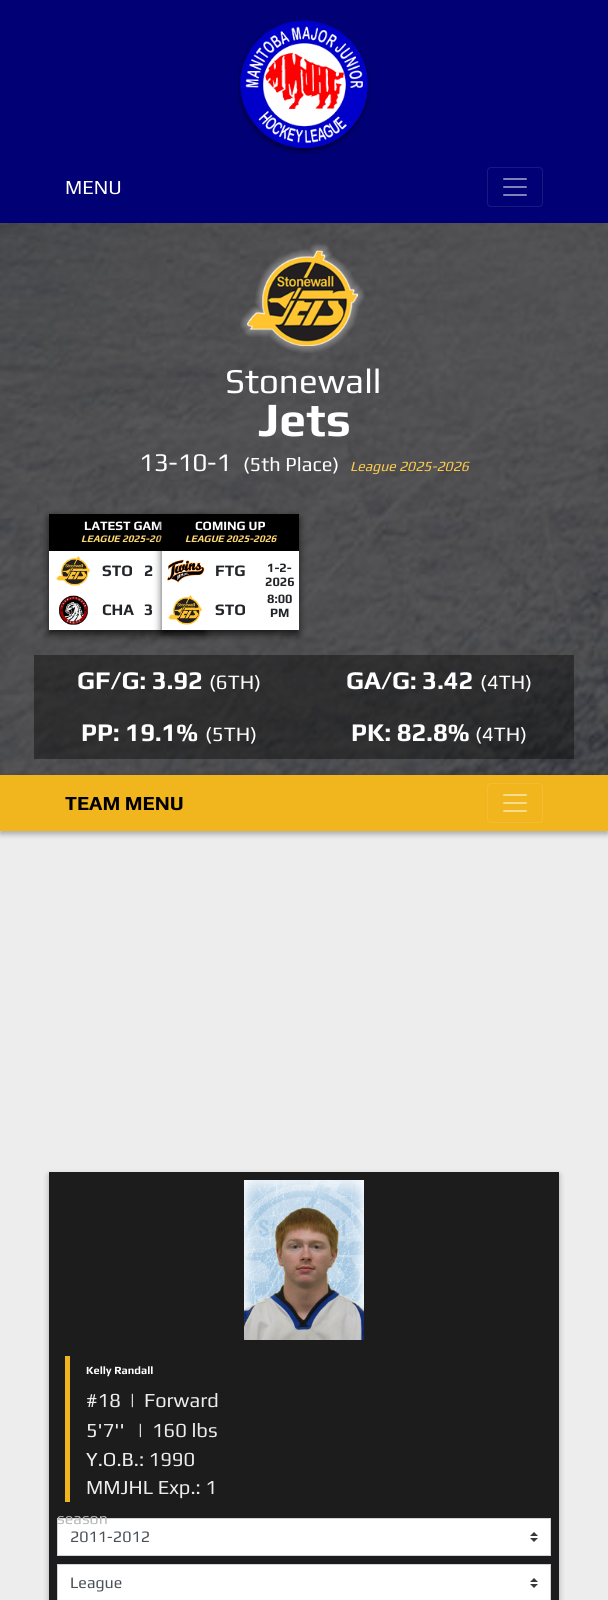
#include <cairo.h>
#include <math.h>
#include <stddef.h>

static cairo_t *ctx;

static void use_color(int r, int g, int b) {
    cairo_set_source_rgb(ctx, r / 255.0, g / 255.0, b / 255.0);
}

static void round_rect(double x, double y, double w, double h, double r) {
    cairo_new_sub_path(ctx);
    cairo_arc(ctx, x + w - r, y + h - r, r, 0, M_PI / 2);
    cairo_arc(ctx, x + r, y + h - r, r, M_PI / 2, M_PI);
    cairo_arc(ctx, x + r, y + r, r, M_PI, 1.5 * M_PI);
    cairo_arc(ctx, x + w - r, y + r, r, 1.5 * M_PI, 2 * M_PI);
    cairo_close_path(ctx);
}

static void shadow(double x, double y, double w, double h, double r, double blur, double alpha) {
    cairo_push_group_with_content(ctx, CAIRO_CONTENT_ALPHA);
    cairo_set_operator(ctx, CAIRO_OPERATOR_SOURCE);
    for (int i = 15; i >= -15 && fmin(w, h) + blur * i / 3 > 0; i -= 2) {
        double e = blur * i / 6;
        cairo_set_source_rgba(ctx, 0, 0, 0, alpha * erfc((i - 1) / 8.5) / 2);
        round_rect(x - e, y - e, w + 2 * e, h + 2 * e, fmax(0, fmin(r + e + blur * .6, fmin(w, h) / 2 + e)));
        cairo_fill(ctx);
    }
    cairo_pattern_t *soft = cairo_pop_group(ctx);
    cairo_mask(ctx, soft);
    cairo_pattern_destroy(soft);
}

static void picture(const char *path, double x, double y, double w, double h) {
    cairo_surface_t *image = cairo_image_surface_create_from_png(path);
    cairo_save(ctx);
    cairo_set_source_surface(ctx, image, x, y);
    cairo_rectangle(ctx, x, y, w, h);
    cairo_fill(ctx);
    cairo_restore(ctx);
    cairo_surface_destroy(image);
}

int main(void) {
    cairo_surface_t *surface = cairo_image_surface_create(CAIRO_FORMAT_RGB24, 608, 1600);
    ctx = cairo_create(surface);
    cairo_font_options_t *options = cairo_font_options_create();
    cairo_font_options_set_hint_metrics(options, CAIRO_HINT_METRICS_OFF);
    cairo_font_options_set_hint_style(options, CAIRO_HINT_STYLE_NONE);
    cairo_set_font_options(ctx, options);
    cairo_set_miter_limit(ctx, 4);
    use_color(237, 237, 237);
    cairo_paint(ctx);
    use_color(1, 0, 116);
    cairo_rectangle(ctx, 0, 0, 608, 223);
    cairo_fill(ctx);
    picture("img1.png", 238, 20, 132, 134);
    cairo_select_font_face(ctx, "Play", CAIRO_FONT_SLANT_NORMAL, CAIRO_FONT_WEIGHT_NORMAL);
    cairo_set_font_size(ctx, 20);
    use_color(255, 255, 255);
    cairo_move_to(ctx, 65, 194);
    cairo_show_text(ctx, "MENU");
    round_rect(487.5, 167.5, 55, 39, 3.5);
    use_color(26, 26, 130);
    cairo_set_line_width(ctx, 1);
    cairo_stroke(ctx);
    picture("img2.png", 503, 178, 24, 18);
    picture("img3.png", 0, 223, 608, 552);
    picture("img4.png", 240, 243, 125, 110);
    cairo_set_font_size(ctx, 35);
    use_color(255, 255, 255);
    cairo_move_to(ctx, 225, 393);
    cairo_show_text(ctx, "Stonewall");
    cairo_select_font_face(ctx, "Play", CAIRO_FONT_SLANT_NORMAL, CAIRO_FONT_WEIGHT_BOLD);
    cairo_set_font_size(ctx, 48);
    cairo_move_to(ctx, 258, 436);
    cairo_show_text(ctx, "Jets");
    cairo_select_font_face(ctx, "Play", CAIRO_FONT_SLANT_NORMAL, CAIRO_FONT_WEIGHT_NORMAL);
    cairo_set_font_size(ctx, 25.5);
    cairo_move_to(ctx, 139, 471);
    cairo_show_text(ctx, "13-10-1");
    cairo_set_font_size(ctx, 20);
    cairo_move_to(ctx, 243, 471);
    cairo_show_text(ctx, "(5th Place)");
    cairo_select_font_face(ctx, "Play", CAIRO_FONT_SLANT_ITALIC, CAIRO_FONT_WEIGHT_NORMAL);
    cairo_set_font_size(ctx, 14);
    use_color(255, 204, 77);
    cairo_move_to(ctx, 350, 471);
    cairo_show_text(ctx, "League 2025-2026");
    use_color(0, 0, 0);
    shadow(49, 518, 156, 116, 0, 4, 0.7);
    use_color(255, 255, 255);
    cairo_rectangle(ctx, 49, 551, 113, 79);
    cairo_fill(ctx);
    use_color(0, 0, 0);
    cairo_rectangle(ctx, 49, 514, 113, 37);
    cairo_fill(ctx);
    cairo_select_font_face(ctx, "Play", CAIRO_FONT_SLANT_NORMAL, CAIRO_FONT_WEIGHT_BOLD);
    cairo_set_font_size(ctx, 12.75);
    use_color(255, 255, 255);
    cairo_move_to(ctx, 84, 530);
    cairo_show_text(ctx, "LATEST GAM");
    cairo_select_font_face(ctx, "Play", CAIRO_FONT_SLANT_ITALIC, CAIRO_FONT_WEIGHT_BOLD);
    cairo_set_font_size(ctx, 10);
    use_color(255, 215, 112);
    cairo_move_to(ctx, 81, 542);
    cairo_show_text(ctx, "LEAGUE 2025-20");
    picture("img5.png", 56, 556, 35, 30);
    cairo_select_font_face(ctx, "Play", CAIRO_FONT_SLANT_NORMAL, CAIRO_FONT_WEIGHT_BOLD);
    cairo_set_font_size(ctx, 16);
    use_color(33, 37, 41);
    cairo_move_to(ctx, 102, 576);
    cairo_show_text(ctx, "STO");
    cairo_move_to(ctx, 144, 576);
    cairo_show_text(ctx, "2");
    picture("img6.png", 59, 595, 30, 30);
    cairo_move_to(ctx, 102, 615);
    cairo_show_text(ctx, "CHA");
    cairo_move_to(ctx, 144, 615);
    cairo_show_text(ctx, "3");
    use_color(0, 0, 0);
    shadow(162, 518, 137, 116, 0, 4, 0.7);
    use_color(255, 255, 255);
    cairo_rectangle(ctx, 162, 551, 137, 79);
    cairo_fill(ctx);
    use_color(0, 0, 0);
    cairo_rectangle(ctx, 162, 514, 137, 37);
    cairo_fill(ctx);
    cairo_set_font_size(ctx, 12.75);
    use_color(255, 255, 255);
    cairo_move_to(ctx, 195, 530);
    cairo_show_text(ctx, "COMING UP");
    cairo_select_font_face(ctx, "Play", CAIRO_FONT_SLANT_ITALIC, CAIRO_FONT_WEIGHT_BOLD);
    cairo_set_font_size(ctx, 10);
    use_color(255, 215, 112);
    cairo_move_to(ctx, 185, 542);
    cairo_show_text(ctx, "LEAGUE 2025-2026");
    picture("img7.png", 167, 559, 38, 24);
    cairo_select_font_face(ctx, "Play", CAIRO_FONT_SLANT_NORMAL, CAIRO_FONT_WEIGHT_BOLD);
    cairo_set_font_size(ctx, 16);
    use_color(33, 37, 41);
    cairo_move_to(ctx, 215, 576);
    cairo_show_text(ctx, "FTG");
    cairo_set_font_size(ctx, 12.75);
    cairo_move_to(ctx, 267, 572);
    cairo_show_text(ctx, "1-2-");
    cairo_move_to(ctx, 265, 586);
    cairo_show_text(ctx, "2026");
    cairo_move_to(ctx, 267, 603);
    cairo_show_text(ctx, "8:00");
    cairo_move_to(ctx, 270, 617);
    cairo_show_text(ctx, "PM");
    picture("img8.png", 168, 595, 35, 30);
    cairo_set_font_size(ctx, 16);
    cairo_move_to(ctx, 215, 615);
    cairo_show_text(ctx, "STO");
    cairo_set_source_rgba(ctx, 0, 0, 0, 0.4);
    cairo_rectangle(ctx, 34, 655, 540, 104);
    cairo_fill(ctx);
    cairo_set_font_size(ctx, 25.5);
    use_color(255, 255, 255);
    cairo_move_to(ctx, 77, 689);
    cairo_show_text(ctx, "GF/G: 3.92");
    cairo_select_font_face(ctx, "Play", CAIRO_FONT_SLANT_NORMAL, CAIRO_FONT_WEIGHT_NORMAL);
    cairo_set_font_size(ctx, 20.5);
    cairo_move_to(ctx, 209, 689);
    cairo_show_text(ctx, "(6TH)");
    cairo_select_font_face(ctx, "Play", CAIRO_FONT_SLANT_NORMAL, CAIRO_FONT_WEIGHT_BOLD);
    cairo_set_font_size(ctx, 25.5);
    cairo_move_to(ctx, 346, 689);
    cairo_show_text(ctx, "GA/G: 3.42");
    cairo_select_font_face(ctx, "Play", CAIRO_FONT_SLANT_NORMAL, CAIRO_FONT_WEIGHT_NORMAL);
    cairo_set_font_size(ctx, 20.5);
    cairo_move_to(ctx, 480, 689);
    cairo_show_text(ctx, "(4TH)");
    cairo_select_font_face(ctx, "Play", CAIRO_FONT_SLANT_NORMAL, CAIRO_FONT_WEIGHT_BOLD);
    cairo_set_font_size(ctx, 25.5);
    cairo_move_to(ctx, 81, 741);
    cairo_show_text(ctx, "PP: 19.1%");
    cairo_select_font_face(ctx, "Play", CAIRO_FONT_SLANT_NORMAL, CAIRO_FONT_WEIGHT_NORMAL);
    cairo_set_font_size(ctx, 20.5);
    cairo_move_to(ctx, 205, 741);
    cairo_show_text(ctx, "(5TH)");
    cairo_select_font_face(ctx, "Play", CAIRO_FONT_SLANT_NORMAL, CAIRO_FONT_WEIGHT_BOLD);
    cairo_set_font_size(ctx, 25.5);
    cairo_move_to(ctx, 351, 741);
    cairo_show_text(ctx, "PK: 82.8%");
    cairo_select_font_face(ctx, "Play", CAIRO_FONT_SLANT_NORMAL, CAIRO_FONT_WEIGHT_NORMAL);
    cairo_set_font_size(ctx, 20.5);
    cairo_move_to(ctx, 475, 741);
    cairo_show_text(ctx, "(4TH)");
    use_color(0, 0, 0);
    shadow(0, 778, 608, 56, 0, 3, 0.3);
    use_color(241, 181, 30);
    cairo_rectangle(ctx, 0, 775, 608, 56);
    cairo_fill(ctx);
    cairo_select_font_face(ctx, "Play", CAIRO_FONT_SLANT_NORMAL, CAIRO_FONT_WEIGHT_BOLD);
    cairo_set_font_size(ctx, 20);
    use_color(0, 0, 0);
    cairo_move_to(ctx, 65, 810);
    cairo_show_text(ctx, "TEAM MENU");
    round_rect(487.5, 783.5, 55, 39, 3.5);
    use_color(242, 188, 53);
    cairo_stroke(ctx);
    picture("img9.png", 503, 794, 24, 18);
    use_color(0, 0, 0);
    shadow(49, 1175, 510, 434, 0, 3, 0.3);
    use_color(28, 28, 28);
    cairo_rectangle(ctx, 49, 1172, 510, 428);
    cairo_fill(ctx);
    picture("img10.png", 244, 1180, 120, 160);
    use_color(241, 181, 30);
    cairo_rectangle(ctx, 65, 1356, 5, 146);
    cairo_fill(ctx);
    cairo_set_font_size(ctx, 11);
    use_color(255, 255, 255);
    cairo_move_to(ctx, 86, 1374);
    cairo_show_text(ctx, "Kelly Randall");
    cairo_select_font_face(ctx, "Play", CAIRO_FONT_SLANT_NORMAL, CAIRO_FONT_WEIGHT_NORMAL);
    cairo_set_font_size(ctx, 20);
    use_color(237, 237, 237);
    cairo_move_to(ctx, 86, 1407);
    cairo_show_text(ctx, "#18");
    cairo_move_to(ctx, 129, 1407);
    cairo_show_text(ctx, "|");
    cairo_move_to(ctx, 144, 1407);
    cairo_show_text(ctx, "Forward");
    cairo_move_to(ctx, 86, 1437);
    cairo_show_text(ctx, "5'7''");
    cairo_move_to(ctx, 137, 1437);
    cairo_show_text(ctx, "|");
    cairo_move_to(ctx, 152, 1437);
    cairo_show_text(ctx, "160 lbs");
    cairo_move_to(ctx, 86, 1466);
    cairo_show_text(ctx, "Y.O.B.: 1990");
    cairo_move_to(ctx, 86, 1494);
    cairo_show_text(ctx, "MMJHL Exp.: 1");
    use_color(255, 255, 255);
    cairo_rectangle(ctx, 58, 1519, 492, 36);
    cairo_fill(ctx);
    picture("img11.png", 530, 1532, 8, 10);
    cairo_rectangle(ctx, 57.5, 1518.5, 493, 37);
    use_color(206, 212, 218);
    cairo_stroke(ctx);
    cairo_set_font_size(ctx, 16);
    use_color(183, 184, 184);
    cairo_move_to(ctx, 57, 1524);
    cairo_show_text(ctx, "season");
    use_color(73, 80, 87);
    cairo_move_to(ctx, 70, 1542);
    cairo_show_text(ctx, "2011-2012");
    use_color(255, 255, 255);
    cairo_rectangle(ctx, 58, 1565, 492, 35);
    cairo_fill(ctx);
    picture("img11.png", 530, 1578, 8, 10);
    cairo_rectangle(ctx, 57.5, 1564.5, 493, 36);
    use_color(206, 212, 218);
    cairo_stroke(ctx);
    use_color(73, 80, 87);
    cairo_move_to(ctx, 70, 1588);
    cairo_show_text(ctx, "League");
    cairo_surface_write_to_png(surface, "result.png");
    cairo_font_options_destroy(options);
    cairo_destroy(ctx);
    cairo_surface_destroy(surface);
    return 0;
}
